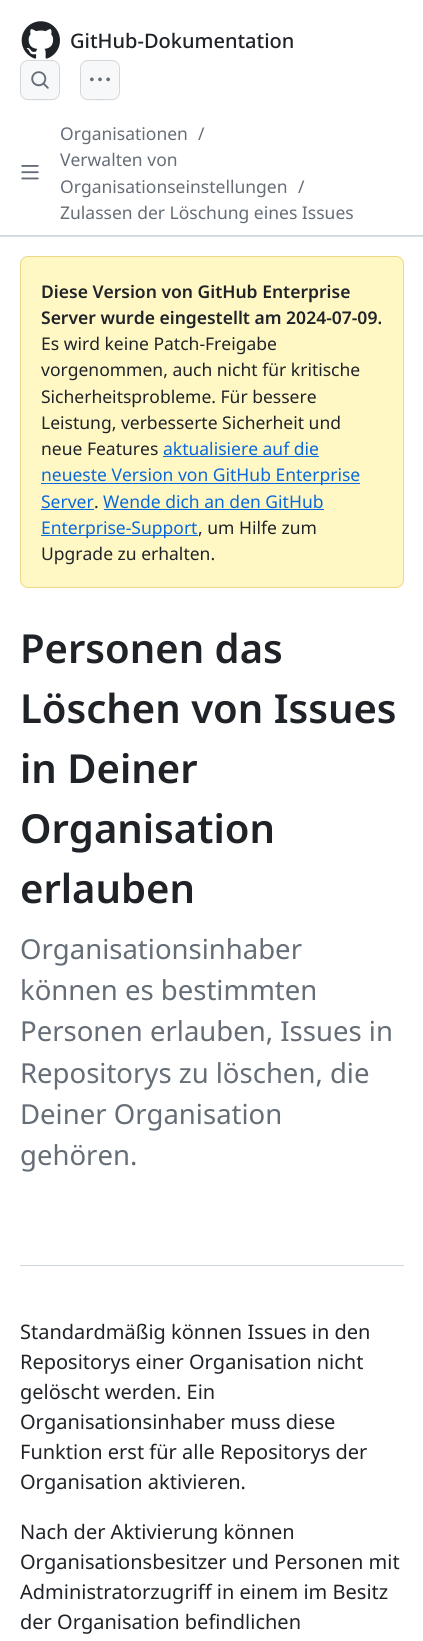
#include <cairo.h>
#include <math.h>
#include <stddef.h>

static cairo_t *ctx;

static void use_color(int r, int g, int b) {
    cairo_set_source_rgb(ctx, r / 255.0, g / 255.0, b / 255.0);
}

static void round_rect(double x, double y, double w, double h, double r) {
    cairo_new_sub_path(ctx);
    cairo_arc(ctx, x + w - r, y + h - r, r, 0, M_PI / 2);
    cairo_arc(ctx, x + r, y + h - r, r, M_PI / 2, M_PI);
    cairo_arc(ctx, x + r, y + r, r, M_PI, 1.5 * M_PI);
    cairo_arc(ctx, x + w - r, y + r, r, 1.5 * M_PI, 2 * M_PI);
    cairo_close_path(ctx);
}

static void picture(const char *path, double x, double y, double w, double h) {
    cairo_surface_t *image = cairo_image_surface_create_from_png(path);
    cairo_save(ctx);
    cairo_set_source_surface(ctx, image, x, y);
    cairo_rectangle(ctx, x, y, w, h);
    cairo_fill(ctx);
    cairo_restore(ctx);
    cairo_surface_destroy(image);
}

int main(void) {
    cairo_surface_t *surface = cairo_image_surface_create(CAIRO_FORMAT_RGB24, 423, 1641);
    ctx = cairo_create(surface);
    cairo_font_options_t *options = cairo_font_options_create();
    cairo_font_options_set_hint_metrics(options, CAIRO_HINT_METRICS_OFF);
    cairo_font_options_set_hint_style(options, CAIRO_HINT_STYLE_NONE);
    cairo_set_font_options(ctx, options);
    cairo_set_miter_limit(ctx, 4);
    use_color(255, 255, 255);
    cairo_paint(ctx);
    use_color(216, 222, 228);
    cairo_rectangle(ctx, 0, 236, 423, 1);
    cairo_fill(ctx);
    use_color(208, 215, 222);
    cairo_rectangle(ctx, 0, 235, 423, 1);
    cairo_fill(ctx);
    picture("img1.png", 21, 21, 39, 38);
    cairo_select_font_face(ctx, "Noto Sans Medium", CAIRO_FONT_SLANT_NORMAL, CAIRO_FONT_WEIGHT_NORMAL);
    cairo_set_font_size(ctx, 20);
    use_color(31, 35, 40);
    cairo_move_to(ctx, 70, 48);
    cairo_show_text(ctx, "GitHub-Dokumentation");
    use_color(246, 246, 246);
    cairo_new_path(ctx);
    cairo_move_to(ctx, 20, 92);
    cairo_curve_to(ctx, 20, 103, 33, 101, 40, 101);
    cairo_curve_to(ctx, 47, 101, 60, 103, 60, 92);
    cairo_curve_to(ctx, 60, 103, 46, 100, 40, 100);
    cairo_curve_to(ctx, 34, 100, 20, 103, 20, 92);
    cairo_close_path(ctx);
    cairo_fill(ctx);
    use_color(246, 248, 250);
    round_rect(20, 60, 40, 40, 8);
    cairo_fill(ctx);
    round_rect(20.5, 60.5, 39, 39, 7.5);
    cairo_set_source_rgba(ctx, 0.122, 0.137, 0.157, 0.15);
    cairo_set_line_width(ctx, 1);
    cairo_stroke(ctx);
    picture("img2.png", 31, 71, 18, 18);
    use_color(246, 246, 246);
    cairo_new_path(ctx);
    cairo_move_to(ctx, 80, 92);
    cairo_curve_to(ctx, 80, 103, 93, 101, 100, 101);
    cairo_curve_to(ctx, 107, 101, 120, 103, 120, 92);
    cairo_curve_to(ctx, 120, 103, 106, 100, 100, 100);
    cairo_curve_to(ctx, 94, 100, 80, 103, 80, 92);
    cairo_close_path(ctx);
    cairo_fill(ctx);
    use_color(246, 248, 250);
    round_rect(80, 60, 40, 40, 8);
    cairo_fill(ctx);
    round_rect(80.5, 60.5, 39, 39, 7.5);
    cairo_set_source_rgba(ctx, 0.122, 0.137, 0.157, 0.15);
    cairo_stroke(ctx);
    picture("img3.png", 90, 77, 20, 5);
    picture("img4.png", 21, 165, 18, 15);
    cairo_select_font_face(ctx, "Noto Sans", CAIRO_FONT_SLANT_NORMAL, CAIRO_FONT_WEIGHT_NORMAL);
    cairo_set_font_size(ctx, 17.5);
    use_color(101, 109, 118);
    cairo_move_to(ctx, 60, 140);
    cairo_show_text(ctx, "Organisationen");
    cairo_move_to(ctx, 198, 140);
    cairo_show_text(ctx, "/");
    cairo_move_to(ctx, 60, 166);
    cairo_show_text(ctx, "Verwalten von");
    cairo_move_to(ctx, 60, 193);
    cairo_show_text(ctx, "Organisationseinstellungen");
    cairo_move_to(ctx, 298, 193);
    cairo_show_text(ctx, "/");
    cairo_move_to(ctx, 60, 219);
    cairo_show_text(ctx, "Zulassen der Löschung eines Issues");
    use_color(255, 248, 197);
    round_rect(20, 256, 384, 332, 8);
    cairo_fill(ctx);
    round_rect(20.5, 256.5, 383, 331, 7.5);
    cairo_set_source_rgba(ctx, 0.831, 0.655, 0.173, 0.4);
    cairo_stroke(ctx);
    cairo_select_font_face(ctx, "Noto Sans SemiBold", CAIRO_FONT_SLANT_NORMAL, CAIRO_FONT_WEIGHT_NORMAL);
    use_color(31, 35, 40);
    cairo_move_to(ctx, 41, 298);
    cairo_show_text(ctx, "Diese Version von GitHub Enterprise");
    cairo_move_to(ctx, 41, 324);
    cairo_show_text(ctx, "Server wurde eingestellt am 2024-07-09.");
    cairo_select_font_face(ctx, "Noto Sans", CAIRO_FONT_SLANT_NORMAL, CAIRO_FONT_WEIGHT_NORMAL);
    cairo_move_to(ctx, 41, 350);
    cairo_show_text(ctx, "Es wird keine Patch-Freigabe");
    cairo_move_to(ctx, 41, 376);
    cairo_show_text(ctx, "vorgenommen, auch nicht für kritische");
    cairo_move_to(ctx, 41, 403);
    cairo_show_text(ctx, "Sicherheitsprobleme. Für bessere");
    cairo_move_to(ctx, 41, 429);
    cairo_show_text(ctx, "Leistung, verbesserte Sicherheit und");
    cairo_move_to(ctx, 41, 455);
    cairo_show_text(ctx, "neue Features");
    use_color(9, 105, 218);
    cairo_move_to(ctx, 163, 455);
    cairo_show_text(ctx, "aktualisiere auf die");
    cairo_rectangle(ctx, 163, 456, 156, 1);
    cairo_fill(ctx);
    cairo_rectangle(ctx, 41, 483, 319, 1);
    cairo_fill(ctx);
    cairo_move_to(ctx, 41, 481);
    cairo_show_text(ctx, "neueste Version von GitHub Enterprise");
    cairo_move_to(ctx, 41, 508);
    cairo_show_text(ctx, "Server");
    use_color(31, 35, 40);
    cairo_move_to(ctx, 94, 508);
    cairo_show_text(ctx, ".");
    use_color(9, 105, 218);
    cairo_rectangle(ctx, 41, 509, 53, 1);
    cairo_fill(ctx);
    cairo_rectangle(ctx, 104, 509, 220, 1);
    cairo_fill(ctx);
    cairo_move_to(ctx, 103, 508);
    cairo_show_text(ctx, "Wende dich an den GitHub");
    cairo_rectangle(ctx, 41, 535, 157, 1);
    cairo_fill(ctx);
    cairo_move_to(ctx, 41, 534);
    cairo_show_text(ctx, "Enterprise-Support");
    use_color(31, 35, 40);
    cairo_move_to(ctx, 198, 534);
    cairo_show_text(ctx, ", um Hilfe zum");
    cairo_move_to(ctx, 41, 560);
    cairo_show_text(ctx, "Upgrade zu erhalten.");
    cairo_select_font_face(ctx, "Noto Sans SemiBold", CAIRO_FONT_SLANT_NORMAL, CAIRO_FONT_WEIGHT_NORMAL);
    cairo_set_font_size(ctx, 40);
    cairo_move_to(ctx, 20, 663);
    cairo_show_text(ctx, "Personen das");
    cairo_move_to(ctx, 20, 723);
    cairo_show_text(ctx, "Löschen von Issues");
    cairo_move_to(ctx, 20, 783);
    cairo_show_text(ctx, "in Deiner");
    cairo_move_to(ctx, 20, 843);
    cairo_show_text(ctx, "Organisation");
    cairo_move_to(ctx, 20, 903);
    cairo_show_text(ctx, "erlauben");
    cairo_select_font_face(ctx, "Noto Sans", CAIRO_FONT_SLANT_NORMAL, CAIRO_FONT_WEIGHT_NORMAL);
    cairo_set_font_size(ctx, 27.5);
    use_color(101, 109, 118);
    cairo_move_to(ctx, 20, 959);
    cairo_show_text(ctx, "Organisationsinhaber");
    cairo_move_to(ctx, 20, 1000);
    cairo_show_text(ctx, "können es bestimmten");
    cairo_move_to(ctx, 20, 1041);
    cairo_show_text(ctx, "Personen erlauben, Issues in");
    cairo_move_to(ctx, 20, 1083);
    cairo_show_text(ctx, "Repositorys zu löschen, die");
    cairo_move_to(ctx, 20, 1124);
    cairo_show_text(ctx, "Deiner Organisation");
    cairo_move_to(ctx, 20, 1165);
    cairo_show_text(ctx, "gehören.");
    use_color(208, 215, 222);
    cairo_rectangle(ctx, 20, 1265, 384, 1);
    cairo_fill(ctx);
    cairo_set_font_size(ctx, 20);
    use_color(31, 35, 40);
    cairo_move_to(ctx, 20, 1339);
    cairo_show_text(ctx, "Standardmäßig können Issues in den");
    cairo_move_to(ctx, 20, 1369);
    cairo_show_text(ctx, "Repositorys einer Organisation nicht");
    cairo_move_to(ctx, 20, 1399);
    cairo_show_text(ctx, "gelöscht werden. Ein");
    cairo_move_to(ctx, 20, 1429);
    cairo_show_text(ctx, "Organisationsinhaber muss diese");
    cairo_move_to(ctx, 20, 1459);
    cairo_show_text(ctx, "Funktion erst für alle Repositorys der");
    cairo_move_to(ctx, 20, 1489);
    cairo_show_text(ctx, "Organisation aktivieren.");
    cairo_move_to(ctx, 20, 1539);
    cairo_show_text(ctx, "Nach der Aktivierung können");
    cairo_move_to(ctx, 20, 1569);
    cairo_show_text(ctx, "Organisationsbesitzer und Personen mit");
    cairo_move_to(ctx, 20, 1599);
    cairo_show_text(ctx, "Administratorzugriff in einem im Besitz");
    cairo_move_to(ctx, 20, 1629);
    cairo_show_text(ctx, "der Organisation befindlichen");
    cairo_surface_write_to_png(surface, "result.png");
    cairo_font_options_destroy(options);
    cairo_destroy(ctx);
    cairo_surface_destroy(surface);
    return 0;
}
